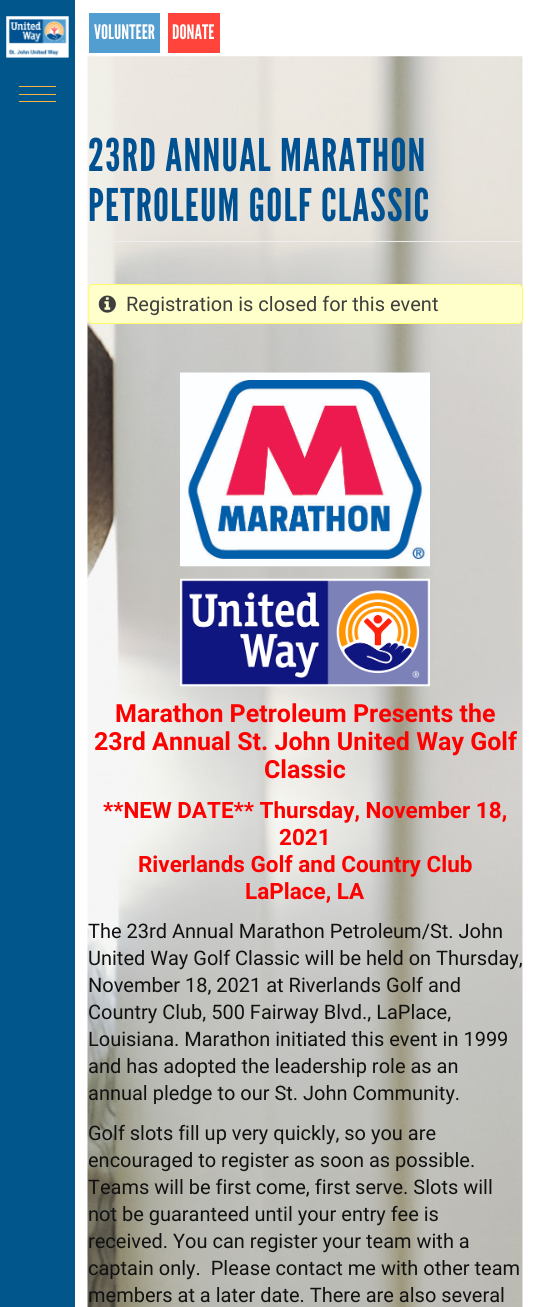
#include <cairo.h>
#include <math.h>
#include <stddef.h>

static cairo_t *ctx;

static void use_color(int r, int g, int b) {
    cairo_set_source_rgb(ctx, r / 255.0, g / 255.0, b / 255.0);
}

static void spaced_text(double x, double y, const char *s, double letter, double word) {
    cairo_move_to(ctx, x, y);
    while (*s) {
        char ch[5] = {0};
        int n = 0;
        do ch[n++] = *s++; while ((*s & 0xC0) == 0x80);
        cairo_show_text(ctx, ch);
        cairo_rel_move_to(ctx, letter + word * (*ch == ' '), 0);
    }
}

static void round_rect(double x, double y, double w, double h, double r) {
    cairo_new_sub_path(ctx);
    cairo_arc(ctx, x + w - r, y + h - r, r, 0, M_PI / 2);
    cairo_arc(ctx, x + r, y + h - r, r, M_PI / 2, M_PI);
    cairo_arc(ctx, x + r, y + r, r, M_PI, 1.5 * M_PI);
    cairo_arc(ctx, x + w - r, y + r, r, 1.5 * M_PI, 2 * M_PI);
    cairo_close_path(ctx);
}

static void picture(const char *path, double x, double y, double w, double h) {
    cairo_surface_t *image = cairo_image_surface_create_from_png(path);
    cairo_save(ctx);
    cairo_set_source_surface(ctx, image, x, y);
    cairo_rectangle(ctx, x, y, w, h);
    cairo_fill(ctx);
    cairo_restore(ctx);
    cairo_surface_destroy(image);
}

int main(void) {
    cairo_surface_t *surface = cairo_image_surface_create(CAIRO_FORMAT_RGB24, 535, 1307);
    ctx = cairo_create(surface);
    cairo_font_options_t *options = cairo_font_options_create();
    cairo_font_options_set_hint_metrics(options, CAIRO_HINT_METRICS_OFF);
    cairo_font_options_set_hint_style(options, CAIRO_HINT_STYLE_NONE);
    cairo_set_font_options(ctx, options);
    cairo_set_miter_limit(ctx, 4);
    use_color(255, 255, 255);
    cairo_paint(ctx);
    use_color(1, 86, 140);
    cairo_rectangle(ctx, 0, 0, 75, 1307);
    cairo_fill(ctx);
    picture("img1.png", 6, 16, 63, 42);
    use_color(252, 181, 62);
    cairo_rectangle(ctx, 19, 86, 37, 1);
    cairo_fill(ctx);
    cairo_rectangle(ctx, 19, 94, 37, 1);
    cairo_fill(ctx);
    cairo_rectangle(ctx, 19, 101, 37, 1);
    cairo_fill(ctx);
    use_color(83, 158, 208);
    cairo_rectangle(ctx, 89, 13, 71, 40);
    cairo_fill(ctx);
    cairo_select_font_face(ctx, "League Gothic", CAIRO_FONT_SLANT_NORMAL, CAIRO_FONT_WEIGHT_NORMAL);
    cairo_set_font_size(ctx, 20);
    use_color(255, 255, 255);
    cairo_move_to(ctx, 94, 39);
    cairo_show_text(ctx, "VOLUNTEER");
    use_color(255, 68, 59);
    cairo_rectangle(ctx, 168, 13, 52, 40);
    cairo_fill(ctx);
    use_color(255, 255, 255);
    cairo_move_to(ctx, 172, 39);
    cairo_show_text(ctx, "DONATE");
    picture("img2.png", 87, 56, 436, 1251);
    use_color(238, 238, 238);
    cairo_rectangle(ctx, 88, 241, 435, 1);
    cairo_fill(ctx);
    cairo_set_font_size(ctx, 45);
    use_color(0, 81, 145);
    spaced_text(88, 171, "23RD ANNUAL MARATHON", 1.25, 0);
    spaced_text(88, 221, "PETROLEUM GOLF CLASSIC", 1.25, 0);
    use_color(255, 255, 204);
    round_rect(88.5, 284.5, 434, 39, 4.5);
    cairo_fill_preserve(ctx);
    use_color(255, 255, 102);
    cairo_set_line_width(ctx, 1);
    cairo_stroke(ctx);
    picture("img3.png", 98, 295, 18, 18);
    cairo_select_font_face(ctx, "Roboto", CAIRO_FONT_SLANT_NORMAL, CAIRO_FONT_WEIGHT_NORMAL);
    cairo_set_font_size(ctx, 20);
    use_color(62, 62, 62);
    cairo_move_to(ctx, 126, 311);
    cairo_show_text(ctx, "Registration is closed for this event");
    picture("img4.png", 180, 372, 250, 195);
    picture("img5.png", 180, 578, 250, 109);
    cairo_select_font_face(ctx, "Roboto", CAIRO_FONT_SLANT_NORMAL, CAIRO_FONT_WEIGHT_BOLD);
    cairo_set_font_size(ctx, 25);
    use_color(255, 0, 0);
    cairo_move_to(ctx, 115, 722);
    cairo_show_text(ctx, "Marathon Petroleum Presents the");
    cairo_move_to(ctx, 94, 750);
    cairo_show_text(ctx, "23rd Annual St. John United Way Golf");
    cairo_move_to(ctx, 264, 778);
    cairo_show_text(ctx, "Classic");
    cairo_set_font_size(ctx, 22.5);
    cairo_move_to(ctx, 103, 818);
    cairo_show_text(ctx, "**NEW DATE** Thursday, November 18,");
    cairo_move_to(ctx, 279, 845);
    cairo_show_text(ctx, "2021");
    cairo_move_to(ctx, 138, 872);
    cairo_show_text(ctx, "Riverlands Golf and Country Club");
    cairo_move_to(ctx, 245, 899);
    cairo_show_text(ctx, "LaPlace, LA");
    cairo_select_font_face(ctx, "Roboto", CAIRO_FONT_SLANT_NORMAL, CAIRO_FONT_WEIGHT_NORMAL);
    cairo_set_font_size(ctx, 20);
    use_color(17, 17, 17);
    cairo_move_to(ctx, 88, 938);
    cairo_show_text(ctx, "The 23rd Annual Marathon Petroleum/St. John");
    cairo_move_to(ctx, 88, 965);
    cairo_show_text(ctx, "United Way Golf Classic will be held on Thursday,");
    cairo_move_to(ctx, 88, 992);
    cairo_show_text(ctx, "November 18, 2021 at Riverlands Golf and");
    cairo_move_to(ctx, 88, 1019);
    cairo_show_text(ctx, "Country Club, 500 Fairway Blvd., LaPlace,");
    cairo_move_to(ctx, 88, 1046);
    cairo_show_text(ctx, "Louisiana. Marathon initiated this event in 1999");
    cairo_move_to(ctx, 88, 1073);
    cairo_show_text(ctx, "and has adopted the leadership role as an");
    cairo_move_to(ctx, 88, 1100);
    cairo_show_text(ctx, "annual pledge to our St. John Community.");
    cairo_move_to(ctx, 88, 1140);
    cairo_show_text(ctx, "Golf slots fill up very quickly, so you are");
    cairo_move_to(ctx, 88, 1167);
    cairo_show_text(ctx, "encouraged to register as soon as possible.");
    cairo_move_to(ctx, 88, 1194);
    cairo_show_text(ctx, "Teams will be first come, first serve. Slots will");
    cairo_move_to(ctx, 88, 1221);
    cairo_show_text(ctx, "not be guaranteed until your entry fee is");
    cairo_move_to(ctx, 88, 1248);
    cairo_show_text(ctx, "received. You can register your team with a");
    cairo_move_to(ctx, 88, 1275);
    cairo_show_text(ctx, "captain only.  Please contact me with other team");
    cairo_move_to(ctx, 88, 1302);
    cairo_show_text(ctx, "members at a later date. There are also several");
    cairo_surface_write_to_png(surface, "result.png");
    cairo_font_options_destroy(options);
    cairo_destroy(ctx);
    cairo_surface_destroy(surface);
    return 0;
}
